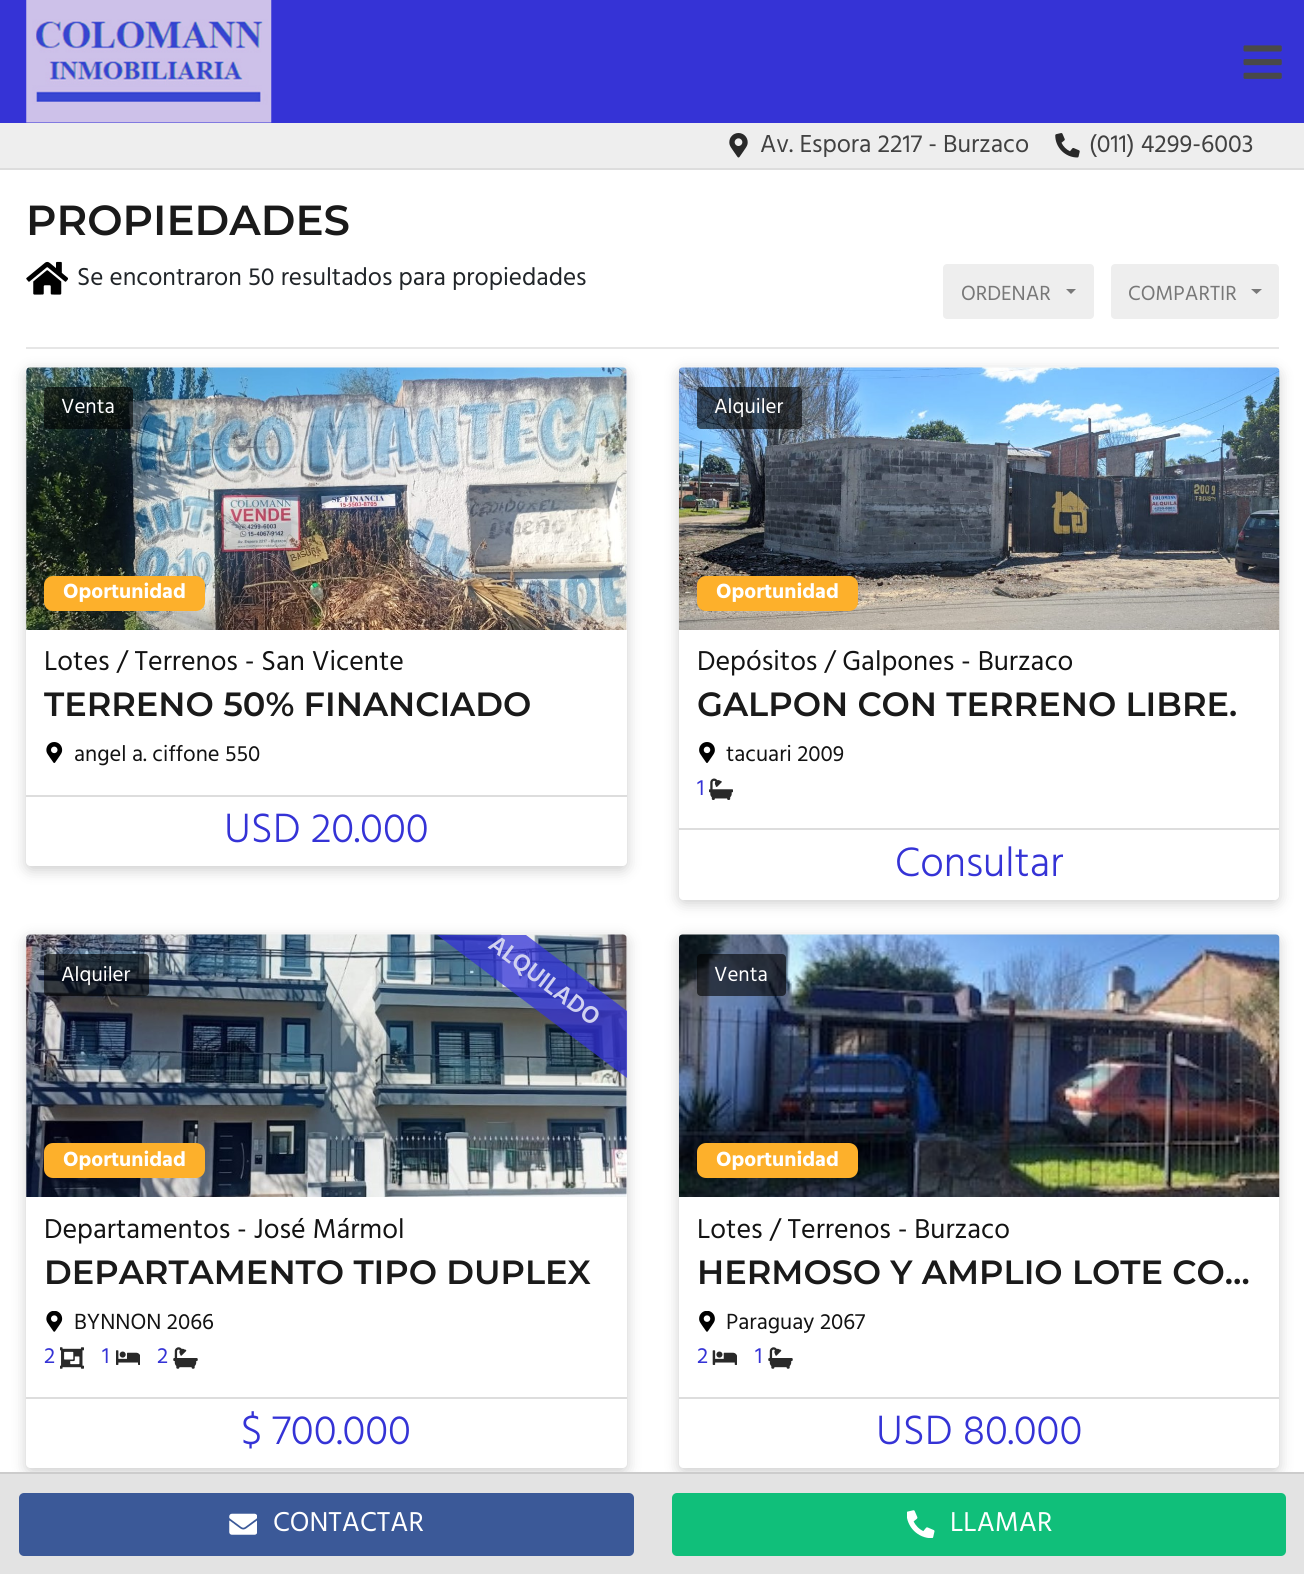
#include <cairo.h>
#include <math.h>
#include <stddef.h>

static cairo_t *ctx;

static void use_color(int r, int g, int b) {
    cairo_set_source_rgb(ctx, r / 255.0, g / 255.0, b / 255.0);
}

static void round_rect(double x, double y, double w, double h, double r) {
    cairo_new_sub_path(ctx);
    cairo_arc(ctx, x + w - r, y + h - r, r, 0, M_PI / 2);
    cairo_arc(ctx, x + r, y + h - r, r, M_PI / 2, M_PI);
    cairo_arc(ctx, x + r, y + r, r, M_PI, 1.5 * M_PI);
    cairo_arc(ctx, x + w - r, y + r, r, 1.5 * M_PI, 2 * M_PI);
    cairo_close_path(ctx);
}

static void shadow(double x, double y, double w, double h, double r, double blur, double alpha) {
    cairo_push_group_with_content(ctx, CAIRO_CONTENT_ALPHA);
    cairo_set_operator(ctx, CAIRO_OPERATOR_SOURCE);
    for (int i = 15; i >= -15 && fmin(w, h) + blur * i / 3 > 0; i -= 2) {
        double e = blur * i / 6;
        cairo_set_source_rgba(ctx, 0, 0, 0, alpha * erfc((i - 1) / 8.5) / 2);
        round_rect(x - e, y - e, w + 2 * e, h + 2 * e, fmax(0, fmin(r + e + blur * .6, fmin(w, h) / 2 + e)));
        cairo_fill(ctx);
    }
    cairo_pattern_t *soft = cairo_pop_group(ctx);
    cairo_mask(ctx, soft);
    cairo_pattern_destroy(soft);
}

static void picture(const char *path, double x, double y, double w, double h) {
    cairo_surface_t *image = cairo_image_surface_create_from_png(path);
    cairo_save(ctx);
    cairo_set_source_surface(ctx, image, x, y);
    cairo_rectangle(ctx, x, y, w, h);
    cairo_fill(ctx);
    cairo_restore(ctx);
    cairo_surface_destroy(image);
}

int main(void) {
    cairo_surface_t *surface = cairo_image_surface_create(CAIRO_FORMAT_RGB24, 1304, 1574);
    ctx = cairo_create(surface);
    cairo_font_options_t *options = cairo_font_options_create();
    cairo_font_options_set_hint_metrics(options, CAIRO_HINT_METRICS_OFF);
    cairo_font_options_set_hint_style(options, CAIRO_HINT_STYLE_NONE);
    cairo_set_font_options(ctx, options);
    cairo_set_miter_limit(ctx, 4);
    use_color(255, 255, 255);
    cairo_paint(ctx);
    use_color(53, 51, 214);
    cairo_rectangle(ctx, 0, 0, 1304, 123);
    cairo_fill(ctx);
    picture("img1.png", 26, 0, 246, 123);
    picture("img2.png", 1243, 45, 39, 34);
    use_color(238, 238, 238);
    cairo_rectangle(ctx, 0, 123, 1304, 45);
    cairo_fill(ctx);
    use_color(221, 221, 221);
    cairo_rectangle(ctx, 0, 168, 1304, 2);
    cairo_fill(ctx);
    picture("img3.png", 729, 133, 19, 25);
    cairo_select_font_face(ctx, "Hind", CAIRO_FONT_SLANT_NORMAL, CAIRO_FONT_WEIGHT_NORMAL);
    cairo_set_font_size(ctx, 25.2);
    use_color(65, 65, 65);
    cairo_move_to(ctx, 760, 152);
    cairo_show_text(ctx, "Av. Espora 2217 - Burzaco");
    picture("img4.png", 1055, 133, 25, 25);
    cairo_move_to(ctx, 1089, 152);
    cairo_show_text(ctx, "(011) 4299-6003");
    cairo_select_font_face(ctx, "Montserrat SemiBold", CAIRO_FONT_SLANT_NORMAL, CAIRO_FONT_WEIGHT_NORMAL);
    cairo_set_font_size(ctx, 42);
    use_color(26, 26, 26);
    cairo_move_to(ctx, 26, 235);
    cairo_show_text(ctx, "PROPIEDADES");
    picture("img5.png", 26, 261, 42, 34);
    cairo_select_font_face(ctx, "Hind", CAIRO_FONT_SLANT_NORMAL, CAIRO_FONT_WEIGHT_NORMAL);
    cairo_set_font_size(ctx, 25.2);
    use_color(33, 37, 41);
    cairo_move_to(ctx, 77, 285);
    cairo_show_text(ctx, "Se encontraron 50 resultados para propiedades");
    use_color(238, 238, 238);
    round_rect(943, 264, 151, 55, 4);
    cairo_fill(ctx);
    cairo_set_font_size(ctx, 21);
    use_color(120, 120, 120);
    cairo_move_to(ctx, 961, 300);
    cairo_show_text(ctx, "ORDENAR");
    cairo_new_path(ctx);
    cairo_move_to(ctx, 1066, 289);
    cairo_line_to(ctx, 1076, 289);
    cairo_line_to(ctx, 1071, 294);
    cairo_close_path(ctx);
    cairo_fill(ctx);
    use_color(238, 238, 238);
    round_rect(1111, 264, 168, 55, 4);
    cairo_fill(ctx);
    use_color(120, 120, 120);
    cairo_move_to(ctx, 1128, 300);
    cairo_show_text(ctx, "COMPARTIR");
    cairo_new_path(ctx);
    cairo_move_to(ctx, 1251, 289);
    cairo_line_to(ctx, 1262, 289);
    cairo_line_to(ctx, 1256.5, 294);
    cairo_close_path(ctx);
    cairo_fill(ctx);
    use_color(230, 230, 230);
    cairo_rectangle(ctx, 26, 347, 1253, 2);
    cairo_fill(ctx);
    cairo_save(ctx);
    cairo_set_fill_rule(ctx, CAIRO_FILL_RULE_EVEN_ODD);
    cairo_new_path(ctx);
    cairo_move_to(ctx, 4, 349);
    cairo_line_to(ctx, 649, 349);
    cairo_line_to(ctx, 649, 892);
    cairo_line_to(ctx, 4, 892);
    cairo_close_path(ctx);
    cairo_move_to(ctx, 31, 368);
    cairo_line_to(ctx, 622, 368);
    cairo_curve_to(ctx, 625, 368, 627, 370, 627, 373);
    cairo_line_to(ctx, 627, 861);
    cairo_curve_to(ctx, 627, 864, 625, 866, 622, 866);
    cairo_line_to(ctx, 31, 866);
    cairo_curve_to(ctx, 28, 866, 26, 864, 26, 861);
    cairo_line_to(ctx, 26, 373);
    cairo_curve_to(ctx, 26, 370, 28, 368, 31, 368);
    cairo_close_path(ctx);
    cairo_clip(ctx);
    use_color(0, 0, 0);
    shadow(26, 371, 601, 499, 5, 7, 0.2);
    cairo_restore(ctx);
    picture("img6.png", 26, 367, 601, 263);
    cairo_set_source_rgba(ctx, 0, 0, 0, 0.6);
    round_rect(44, 387, 89, 42, 4);
    cairo_fill(ctx);
    use_color(255, 255, 255);
    cairo_move_to(ctx, 61, 413);
    cairo_show_text(ctx, "Venta");
    use_color(253, 176, 43);
    round_rect(44, 576, 161, 35, 9);
    cairo_fill(ctx);
    cairo_select_font_face(ctx, "Hind", CAIRO_FONT_SLANT_NORMAL, CAIRO_FONT_WEIGHT_BOLD);
    use_color(255, 255, 255);
    cairo_move_to(ctx, 63, 598);
    cairo_show_text(ctx, "Oportunidad");
    cairo_select_font_face(ctx, "Hind", CAIRO_FONT_SLANT_NORMAL, CAIRO_FONT_WEIGHT_NORMAL);
    cairo_set_font_size(ctx, 28);
    use_color(19, 19, 19);
    cairo_move_to(ctx, 44, 670);
    cairo_show_text(ctx, "Lotes / Terrenos - San Vicente");
    cairo_save(ctx);
    cairo_rectangle(ctx, 44, 684, 565, 41);
    cairo_clip(ctx);
    cairo_select_font_face(ctx, "Montserrat SemiBold", CAIRO_FONT_SLANT_NORMAL, CAIRO_FONT_WEIGHT_NORMAL);
    cairo_set_font_size(ctx, 33.6);
    use_color(26, 26, 26);
    cairo_move_to(ctx, 44, 716);
    cairo_show_text(ctx, "TERRENO 50% FINANCIADO");
    cairo_restore(ctx);
    picture("img7.png", 46, 742, 17, 21);
    cairo_set_font_size(ctx, 22.5);
    cairo_move_to(ctx, 74, 761);
    cairo_show_text(ctx, "angel a. ciffone 550");
    use_color(221, 221, 221);
    cairo_rectangle(ctx, 26, 795, 601, 2);
    cairo_fill(ctx);
    cairo_select_font_face(ctx, "Hind Light", CAIRO_FONT_SLANT_NORMAL, CAIRO_FONT_WEIGHT_NORMAL);
    cairo_set_font_size(ctx, 42);
    use_color(53, 51, 214);
    cairo_move_to(ctx, 224, 842);
    cairo_show_text(ctx, "USD 20.000");
    cairo_save(ctx);
    cairo_set_fill_rule(ctx, CAIRO_FILL_RULE_EVEN_ODD);
    cairo_new_path(ctx);
    cairo_move_to(ctx, 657, 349);
    cairo_line_to(ctx, 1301, 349);
    cairo_line_to(ctx, 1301, 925);
    cairo_line_to(ctx, 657, 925);
    cairo_close_path(ctx);
    cairo_move_to(ctx, 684, 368);
    cairo_line_to(ctx, 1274, 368);
    cairo_curve_to(ctx, 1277, 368, 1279, 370, 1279, 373);
    cairo_line_to(ctx, 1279, 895);
    cairo_curve_to(ctx, 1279, 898, 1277, 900, 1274, 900);
    cairo_line_to(ctx, 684, 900);
    cairo_curve_to(ctx, 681, 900, 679, 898, 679, 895);
    cairo_line_to(ctx, 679, 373);
    cairo_curve_to(ctx, 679, 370, 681, 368, 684, 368);
    cairo_close_path(ctx);
    cairo_clip(ctx);
    use_color(0, 0, 0);
    shadow(679, 371, 600, 532, 5, 7, 0.2);
    cairo_restore(ctx);
    picture("img8.png", 679, 367, 601, 263);
    cairo_set_source_rgba(ctx, 0, 0, 0, 0.6);
    round_rect(697, 387, 105, 42, 4);
    cairo_fill(ctx);
    cairo_select_font_face(ctx, "Hind", CAIRO_FONT_SLANT_NORMAL, CAIRO_FONT_WEIGHT_NORMAL);
    cairo_set_font_size(ctx, 21);
    use_color(255, 255, 255);
    cairo_move_to(ctx, 714, 413);
    cairo_show_text(ctx, "Alquiler");
    use_color(253, 176, 43);
    round_rect(697, 576, 161, 35, 9);
    cairo_fill(ctx);
    cairo_select_font_face(ctx, "Hind", CAIRO_FONT_SLANT_NORMAL, CAIRO_FONT_WEIGHT_BOLD);
    use_color(255, 255, 255);
    cairo_move_to(ctx, 716, 598);
    cairo_show_text(ctx, "Oportunidad");
    cairo_select_font_face(ctx, "Hind", CAIRO_FONT_SLANT_NORMAL, CAIRO_FONT_WEIGHT_NORMAL);
    cairo_set_font_size(ctx, 28);
    use_color(19, 19, 19);
    cairo_move_to(ctx, 697, 670);
    cairo_show_text(ctx, "Depósitos / Galpones - Burzaco");
    cairo_select_font_face(ctx, "Montserrat SemiBold", CAIRO_FONT_SLANT_NORMAL, CAIRO_FONT_WEIGHT_NORMAL);
    cairo_set_font_size(ctx, 33.6);
    use_color(26, 26, 26);
    cairo_move_to(ctx, 697, 716);
    cairo_show_text(ctx, "GALPON CON TERRENO LIBRE.");
    picture("img9.png", 699, 742, 16, 21);
    cairo_select_font_face(ctx, "Hind", CAIRO_FONT_SLANT_NORMAL, CAIRO_FONT_WEIGHT_NORMAL);
    cairo_set_font_size(ctx, 22.5);
    use_color(19, 19, 19);
    cairo_move_to(ctx, 726, 761);
    cairo_show_text(ctx, "tacuari 2009");
    use_color(53, 51, 214);
    cairo_move_to(ctx, 697, 795);
    cairo_show_text(ctx, "1");
    picture("img10.png", 709, 778, 24, 22);
    use_color(221, 221, 221);
    cairo_rectangle(ctx, 679, 828, 600, 2);
    cairo_fill(ctx);
    cairo_select_font_face(ctx, "Hind Light", CAIRO_FONT_SLANT_NORMAL, CAIRO_FONT_WEIGHT_NORMAL);
    cairo_set_font_size(ctx, 42);
    use_color(53, 51, 214);
    cairo_move_to(ctx, 895, 876);
    cairo_show_text(ctx, "Consultar");
    cairo_save(ctx);
    cairo_set_fill_rule(ctx, CAIRO_FILL_RULE_EVEN_ODD);
    cairo_new_path(ctx);
    cairo_move_to(ctx, 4, 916);
    cairo_line_to(ctx, 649, 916);
    cairo_line_to(ctx, 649, 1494);
    cairo_line_to(ctx, 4, 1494);
    cairo_close_path(ctx);
    cairo_move_to(ctx, 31, 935);
    cairo_line_to(ctx, 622, 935);
    cairo_curve_to(ctx, 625, 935, 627, 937, 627, 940);
    cairo_line_to(ctx, 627, 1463);
    cairo_curve_to(ctx, 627, 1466, 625, 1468, 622, 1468);
    cairo_line_to(ctx, 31, 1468);
    cairo_curve_to(ctx, 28, 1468, 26, 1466, 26, 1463);
    cairo_line_to(ctx, 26, 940);
    cairo_curve_to(ctx, 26, 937, 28, 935, 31, 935);
    cairo_close_path(ctx);
    cairo_clip(ctx);
    use_color(0, 0, 0);
    shadow(26, 938, 601, 534, 5, 7, 0.2);
    cairo_restore(ctx);
    picture("img11.png", 26, 934, 601, 263);
    cairo_set_source_rgba(ctx, 0, 0, 0, 0.6);
    round_rect(44, 954, 105, 42, 4);
    cairo_fill(ctx);
    cairo_select_font_face(ctx, "Hind", CAIRO_FONT_SLANT_NORMAL, CAIRO_FONT_WEIGHT_NORMAL);
    cairo_set_font_size(ctx, 21);
    use_color(255, 255, 255);
    cairo_move_to(ctx, 61, 981);
    cairo_show_text(ctx, "Alquiler");
    cairo_set_source_rgba(ctx, 0.208, 0.2, 0.839, 0.75);
    cairo_new_path(ctx);
    cairo_move_to(ctx, 627, 1078);
    cairo_line_to(ctx, 437, 935);
    cairo_line_to(ctx, 526, 935);
    cairo_line_to(ctx, 627, 1011);
    cairo_close_path(ctx);
    cairo_fill(ctx);
    cairo_select_font_face(ctx, "Hind SemiBold", CAIRO_FONT_SLANT_NORMAL, CAIRO_FONT_WEIGHT_NORMAL);
    cairo_set_font_size(ctx, 24.5);
    use_color(208, 209, 240);
    cairo_save(ctx);
    cairo_translate(ctx, 487, 947);
    cairo_rotate(ctx, 37 * M_PI / 180);
    cairo_move_to(ctx, 0, 0);
    cairo_show_text(ctx, "ALQUILADO");
    cairo_restore(ctx);
    use_color(253, 176, 43);
    round_rect(44, 1143, 161, 35, 9);
    cairo_fill(ctx);
    cairo_select_font_face(ctx, "Hind", CAIRO_FONT_SLANT_NORMAL, CAIRO_FONT_WEIGHT_BOLD);
    cairo_set_font_size(ctx, 21);
    use_color(255, 255, 255);
    cairo_move_to(ctx, 63, 1166);
    cairo_show_text(ctx, "Oportunidad");
    cairo_select_font_face(ctx, "Hind", CAIRO_FONT_SLANT_NORMAL, CAIRO_FONT_WEIGHT_NORMAL);
    cairo_set_font_size(ctx, 28);
    use_color(19, 19, 19);
    cairo_move_to(ctx, 44, 1238);
    cairo_show_text(ctx, "Departamentos - José Mármol");
    cairo_select_font_face(ctx, "Montserrat SemiBold", CAIRO_FONT_SLANT_NORMAL, CAIRO_FONT_WEIGHT_NORMAL);
    cairo_set_font_size(ctx, 33.6);
    use_color(26, 26, 26);
    cairo_move_to(ctx, 44, 1284);
    cairo_show_text(ctx, "DEPARTAMENTO TIPO DUPLEX");
    picture("img12.png", 46, 1311, 17, 21);
    cairo_select_font_face(ctx, "Hind", CAIRO_FONT_SLANT_NORMAL, CAIRO_FONT_WEIGHT_NORMAL);
    cairo_set_font_size(ctx, 22.5);
    use_color(19, 19, 19);
    cairo_move_to(ctx, 74, 1329);
    cairo_show_text(ctx, "BYNNON 2066");
    use_color(53, 51, 214);
    cairo_move_to(ctx, 44, 1363);
    cairo_show_text(ctx, "2");
    picture("img13.png", 60, 1347, 24, 22);
    cairo_move_to(ctx, 102, 1363);
    cairo_show_text(ctx, "1");
    picture("img14.png", 116, 1350, 24, 15);
    cairo_move_to(ctx, 157, 1363);
    cairo_show_text(ctx, "2");
    picture("img15.png", 173, 1347, 25, 22);
    use_color(221, 221, 221);
    cairo_rectangle(ctx, 26, 1397, 601, 2);
    cairo_fill(ctx);
    cairo_select_font_face(ctx, "Hind Light", CAIRO_FONT_SLANT_NORMAL, CAIRO_FONT_WEIGHT_NORMAL);
    cairo_set_font_size(ctx, 42);
    use_color(53, 51, 214);
    cairo_move_to(ctx, 241, 1444);
    cairo_show_text(ctx, "$ 700.000");
    cairo_save(ctx);
    cairo_set_fill_rule(ctx, CAIRO_FILL_RULE_EVEN_ODD);
    cairo_new_path(ctx);
    cairo_move_to(ctx, 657, 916);
    cairo_line_to(ctx, 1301, 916);
    cairo_line_to(ctx, 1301, 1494);
    cairo_line_to(ctx, 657, 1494);
    cairo_close_path(ctx);
    cairo_move_to(ctx, 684, 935);
    cairo_line_to(ctx, 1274, 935);
    cairo_curve_to(ctx, 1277, 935, 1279, 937, 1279, 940);
    cairo_line_to(ctx, 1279, 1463);
    cairo_curve_to(ctx, 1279, 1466, 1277, 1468, 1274, 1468);
    cairo_line_to(ctx, 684, 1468);
    cairo_curve_to(ctx, 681, 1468, 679, 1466, 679, 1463);
    cairo_line_to(ctx, 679, 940);
    cairo_curve_to(ctx, 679, 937, 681, 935, 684, 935);
    cairo_close_path(ctx);
    cairo_clip(ctx);
    use_color(0, 0, 0);
    shadow(679, 938, 600, 534, 5, 7, 0.2);
    cairo_restore(ctx);
    picture("img16.png", 679, 934, 601, 263);
    cairo_set_source_rgba(ctx, 0, 0, 0, 0.6);
    round_rect(697, 954, 89, 42, 4);
    cairo_fill(ctx);
    cairo_select_font_face(ctx, "Hind", CAIRO_FONT_SLANT_NORMAL, CAIRO_FONT_WEIGHT_NORMAL);
    cairo_set_font_size(ctx, 21);
    use_color(255, 255, 255);
    cairo_move_to(ctx, 714, 981);
    cairo_show_text(ctx, "Venta");
    use_color(253, 176, 43);
    round_rect(697, 1143, 161, 35, 9);
    cairo_fill(ctx);
    cairo_select_font_face(ctx, "Hind", CAIRO_FONT_SLANT_NORMAL, CAIRO_FONT_WEIGHT_BOLD);
    use_color(255, 255, 255);
    cairo_move_to(ctx, 716, 1166);
    cairo_show_text(ctx, "Oportunidad");
    cairo_select_font_face(ctx, "Hind", CAIRO_FONT_SLANT_NORMAL, CAIRO_FONT_WEIGHT_NORMAL);
    cairo_set_font_size(ctx, 28);
    use_color(19, 19, 19);
    cairo_move_to(ctx, 697, 1238);
    cairo_show_text(ctx, "Lotes / Terrenos - Burzaco");
    cairo_select_font_face(ctx, "Montserrat SemiBold", CAIRO_FONT_SLANT_NORMAL, CAIRO_FONT_WEIGHT_NORMAL);
    cairo_set_font_size(ctx, 33.6);
    use_color(26, 26, 26);
    cairo_move_to(ctx, 697, 1284);
    cairo_show_text(ctx, "HERMOSO Y AMPLIO LOTE CO…");
    picture("img17.png", 699, 1311, 16, 21);
    cairo_select_font_face(ctx, "Hind", CAIRO_FONT_SLANT_NORMAL, CAIRO_FONT_WEIGHT_NORMAL);
    cairo_set_font_size(ctx, 22.5);
    use_color(19, 19, 19);
    cairo_move_to(ctx, 726, 1329);
    cairo_show_text(ctx, "Paraguay 2067");
    use_color(53, 51, 214);
    cairo_move_to(ctx, 697, 1363);
    cairo_show_text(ctx, "2");
    picture("img18.png", 712, 1350, 25, 15);
    cairo_move_to(ctx, 755, 1363);
    cairo_show_text(ctx, "1");
    picture("img15.png", 768, 1347, 25, 22);
    use_color(221, 221, 221);
    cairo_rectangle(ctx, 679, 1397, 600, 2);
    cairo_fill(ctx);
    cairo_select_font_face(ctx, "Hind Light", CAIRO_FONT_SLANT_NORMAL, CAIRO_FONT_WEIGHT_NORMAL);
    cairo_set_font_size(ctx, 42);
    use_color(53, 51, 214);
    cairo_move_to(ctx, 876, 1444);
    cairo_show_text(ctx, "USD 80.000");
    use_color(227, 227, 227);
    cairo_rectangle(ctx, 0, 1474, 1304, 100);
    cairo_fill(ctx);
    use_color(204, 204, 204);
    cairo_rectangle(ctx, 0, 1472, 1304, 2);
    cairo_fill(ctx);
    use_color(59, 89, 152);
    round_rect(19, 1493, 615, 63, 5);
    cairo_fill(ctx);
    picture("img19.png", 229, 1513, 28, 22);
    cairo_select_font_face(ctx, "Hind", CAIRO_FONT_SLANT_NORMAL, CAIRO_FONT_WEIGHT_NORMAL);
    cairo_set_font_size(ctx, 28);
    use_color(255, 255, 255);
    cairo_move_to(ctx, 273, 1531);
    cairo_show_text(ctx, "CONTACTAR");
    use_color(16, 191, 122);
    round_rect(672, 1493, 614, 63, 5);
    cairo_fill(ctx);
    picture("img20.png", 907, 1510, 28, 28);
    use_color(255, 255, 255);
    cairo_move_to(ctx, 950, 1531);
    cairo_show_text(ctx, "LLAMAR");
    cairo_surface_write_to_png(surface, "result.png");
    cairo_font_options_destroy(options);
    cairo_destroy(ctx);
    cairo_surface_destroy(surface);
    return 0;
}
